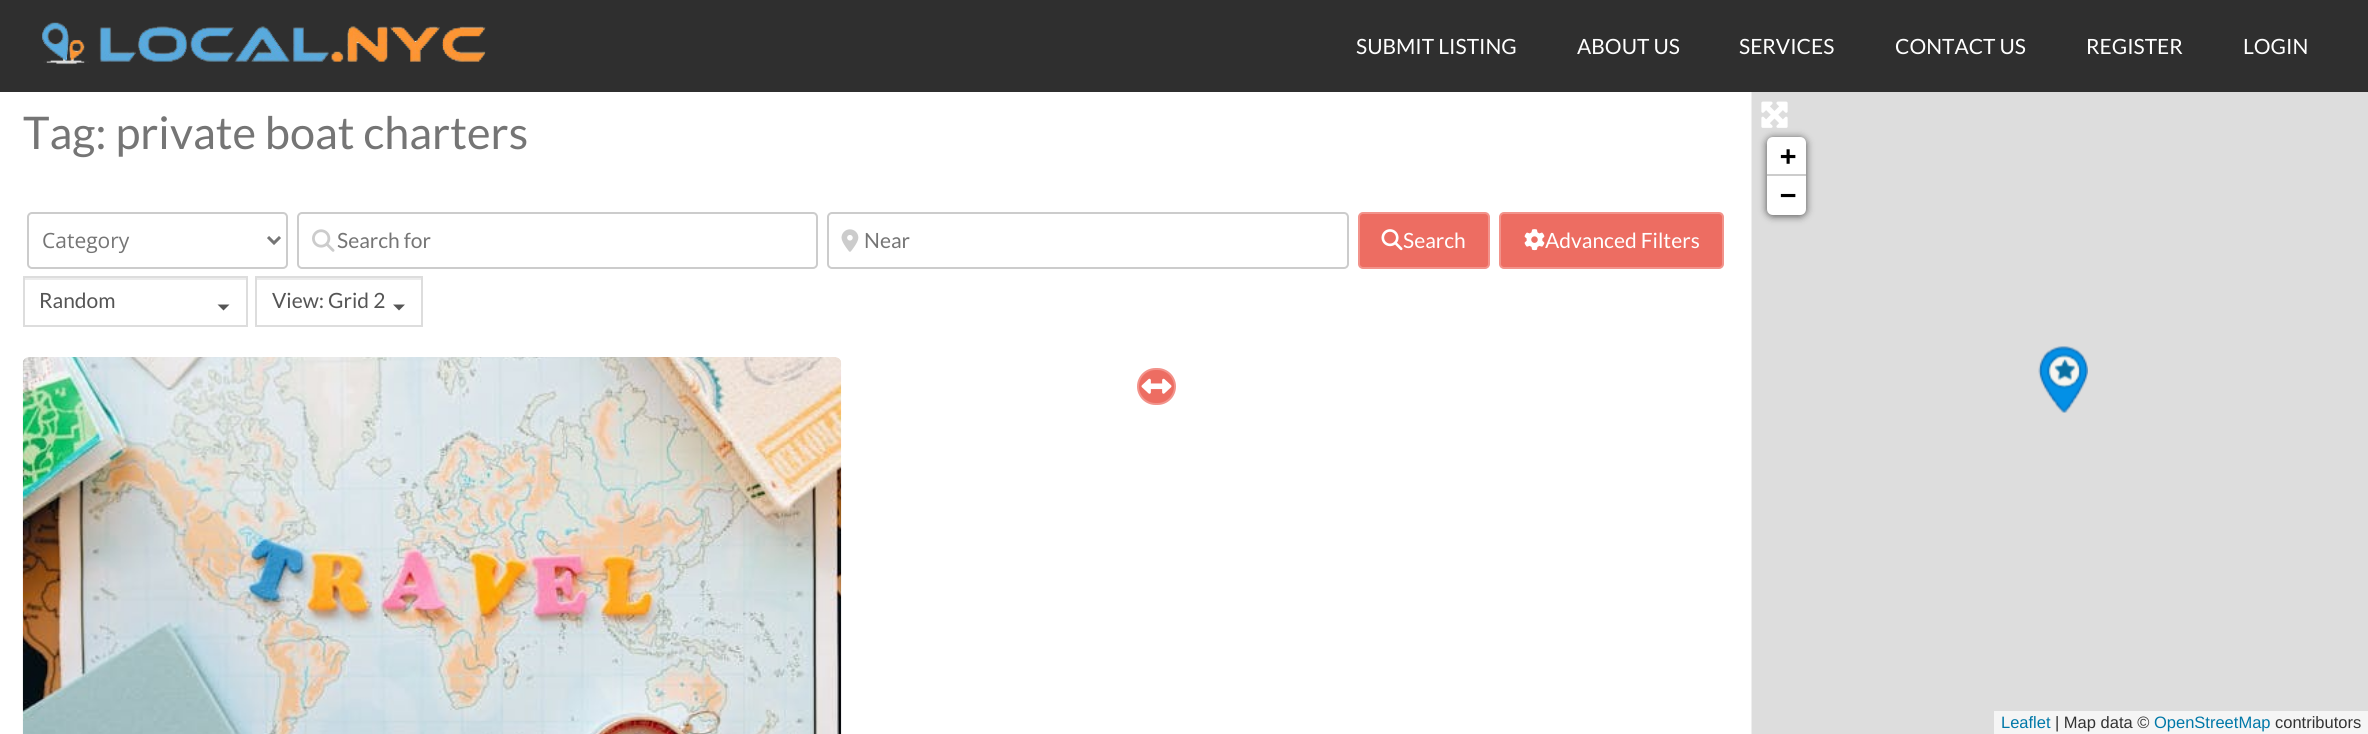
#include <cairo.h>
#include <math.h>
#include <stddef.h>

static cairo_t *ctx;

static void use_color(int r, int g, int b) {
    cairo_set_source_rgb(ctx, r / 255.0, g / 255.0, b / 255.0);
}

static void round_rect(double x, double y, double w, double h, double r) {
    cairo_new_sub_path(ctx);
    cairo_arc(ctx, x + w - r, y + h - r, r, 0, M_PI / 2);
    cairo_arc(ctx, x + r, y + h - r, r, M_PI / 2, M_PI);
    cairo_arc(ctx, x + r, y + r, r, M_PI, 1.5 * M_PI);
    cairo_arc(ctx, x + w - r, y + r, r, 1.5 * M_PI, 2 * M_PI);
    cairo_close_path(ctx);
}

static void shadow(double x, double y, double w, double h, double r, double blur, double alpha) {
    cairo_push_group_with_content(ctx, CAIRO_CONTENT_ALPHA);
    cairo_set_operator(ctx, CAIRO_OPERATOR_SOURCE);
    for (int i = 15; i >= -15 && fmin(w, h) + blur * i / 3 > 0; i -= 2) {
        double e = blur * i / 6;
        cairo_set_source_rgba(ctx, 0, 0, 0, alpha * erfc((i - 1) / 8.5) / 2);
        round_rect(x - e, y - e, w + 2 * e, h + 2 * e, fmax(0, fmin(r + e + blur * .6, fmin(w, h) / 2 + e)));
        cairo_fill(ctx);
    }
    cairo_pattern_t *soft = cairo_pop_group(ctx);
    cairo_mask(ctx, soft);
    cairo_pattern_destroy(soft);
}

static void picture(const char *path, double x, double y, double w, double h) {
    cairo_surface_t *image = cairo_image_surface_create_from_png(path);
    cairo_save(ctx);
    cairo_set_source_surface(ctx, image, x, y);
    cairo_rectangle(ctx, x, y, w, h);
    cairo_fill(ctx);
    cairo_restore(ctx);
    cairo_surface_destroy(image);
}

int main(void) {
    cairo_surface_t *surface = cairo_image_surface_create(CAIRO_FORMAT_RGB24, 2368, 734);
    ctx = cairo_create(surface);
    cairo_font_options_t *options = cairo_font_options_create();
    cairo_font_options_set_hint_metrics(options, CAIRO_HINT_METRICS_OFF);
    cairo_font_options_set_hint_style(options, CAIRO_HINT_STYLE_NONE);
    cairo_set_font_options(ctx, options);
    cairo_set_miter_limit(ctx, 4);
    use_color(255, 255, 255);
    cairo_paint(ctx);
    use_color(47, 47, 47);
    cairo_rectangle(ctx, 0, 0, 2368, 92);
    cairo_fill(ctx);
    picture("img1.png", 42, 22, 444, 43);
    cairo_select_font_face(ctx, "Lato", CAIRO_FONT_SLANT_NORMAL, CAIRO_FONT_WEIGHT_NORMAL);
    cairo_set_font_size(ctx, 21);
    use_color(255, 255, 255);
    cairo_move_to(ctx, 1356, 54);
    cairo_show_text(ctx, "SUBMIT LISTING");
    cairo_move_to(ctx, 1577, 54);
    cairo_show_text(ctx, "ABOUT US");
    cairo_move_to(ctx, 1739, 54);
    cairo_show_text(ctx, "SERVICES");
    cairo_move_to(ctx, 1895, 54);
    cairo_show_text(ctx, "CONTACT US");
    cairo_move_to(ctx, 2086, 54);
    cairo_show_text(ctx, "REGISTER");
    cairo_move_to(ctx, 2243, 54);
    cairo_show_text(ctx, "LOGIN");
    use_color(238, 238, 238);
    cairo_rectangle(ctx, 1751, 92, 1, 642);
    cairo_fill(ctx);
    cairo_set_font_size(ctx, 45);
    use_color(117, 117, 117);
    cairo_move_to(ctx, 23, 149);
    cairo_show_text(ctx, "Tag: private boat charters");
    round_rect(28, 213, 259, 55, 4);
    use_color(204, 204, 204);
    cairo_stroke(ctx);
    cairo_new_path(ctx);
    cairo_move_to(ctx, 268, 237);
    cairo_line_to(ctx, 274, 243);
    cairo_line_to(ctx, 280, 237);
    use_color(117, 117, 117);
    cairo_set_line_width(ctx, 3);
    cairo_stroke(ctx);
    cairo_select_font_face(ctx, "Open Sans", CAIRO_FONT_SLANT_NORMAL, CAIRO_FONT_WEIGHT_NORMAL);
    cairo_set_font_size(ctx, 21);
    cairo_move_to(ctx, 42, 248);
    cairo_show_text(ctx, "Category");
    round_rect(298, 213, 519, 55, 4);
    use_color(204, 204, 204);
    cairo_set_line_width(ctx, 2);
    cairo_stroke(ctx);
    picture("img2.png", 312, 229, 23, 23);
    cairo_select_font_face(ctx, "Lato", CAIRO_FONT_SLANT_NORMAL, CAIRO_FONT_WEIGHT_NORMAL);
    use_color(117, 117, 117);
    cairo_move_to(ctx, 337, 248);
    cairo_show_text(ctx, "Search for");
    round_rect(828, 213, 520, 55, 4);
    use_color(204, 204, 204);
    cairo_stroke(ctx);
    picture("img3.png", 841, 229, 18, 23);
    use_color(117, 117, 117);
    cairo_move_to(ctx, 864, 248);
    cairo_show_text(ctx, "Near");
    use_color(237, 109, 98);
    round_rect(1359, 213, 130, 55, 4);
    cairo_fill_preserve(ctx);
    use_color(242, 147, 139);
    cairo_stroke(ctx);
    picture("img4.png", 1381, 229, 22, 22);
    use_color(255, 255, 255);
    cairo_move_to(ctx, 1403, 248);
    cairo_show_text(ctx, "Search");
    use_color(237, 109, 98);
    round_rect(1500, 213, 223, 55, 4);
    cairo_fill_preserve(ctx);
    use_color(242, 147, 139);
    cairo_stroke(ctx);
    picture("img5.png", 1524, 229, 21, 22);
    use_color(255, 255, 255);
    cairo_move_to(ctx, 1545, 248);
    cairo_show_text(ctx, "Advanced Filters");
    use_color(236, 236, 236);
    cairo_rectangle(ctx, 24, 278, 222, 2);
    cairo_fill(ctx);
    cairo_rectangle(ctx, 24, 277, 223, 49);
    use_color(221, 221, 221);
    cairo_stroke(ctx);
    use_color(85, 85, 85);
    cairo_move_to(ctx, 39, 308);
    cairo_show_text(ctx, "Random");
    cairo_new_path(ctx);
    cairo_move_to(ctx, 217.5, 304.5);
    cairo_line_to(ctx, 229.5, 304.5);
    cairo_line_to(ctx, 223.5, 310.5);
    cairo_close_path(ctx);
    cairo_fill(ctx);
    use_color(236, 236, 236);
    cairo_rectangle(ctx, 257, 278, 165, 2);
    cairo_fill(ctx);
    cairo_rectangle(ctx, 256, 277, 166, 49);
    use_color(221, 221, 221);
    cairo_stroke(ctx);
    use_color(85, 85, 85);
    cairo_move_to(ctx, 272, 308);
    cairo_show_text(ctx, "View: Grid 2");
    cairo_new_path(ctx);
    cairo_move_to(ctx, 393, 304.5);
    cairo_line_to(ctx, 405, 304.5);
    cairo_line_to(ctx, 399, 310.5);
    cairo_close_path(ctx);
    cairo_fill(ctx);
    picture("img6.png", 22, 357, 820, 377);
    use_color(221, 221, 221);
    cairo_rectangle(ctx, 1752, 92, 616, 642);
    cairo_fill(ctx);
    use_color(0, 0, 0);
    shadow(1767, 138, 39, 78, 6, 4, 0.65);
    picture("img7.png", 1761, 101, 27, 27);
    use_color(255, 255, 255);
    cairo_new_path(ctx);
    cairo_move_to(ctx, 1773, 137);
    cairo_line_to(ctx, 1800, 137);
    cairo_curve_to(ctx, 1803.5, 137, 1806, 139.5, 1806, 143);
    cairo_line_to(ctx, 1806, 176);
    cairo_line_to(ctx, 1767, 176);
    cairo_line_to(ctx, 1767, 143);
    cairo_curve_to(ctx, 1767, 139.5, 1769.5, 137, 1773, 137);
    cairo_close_path(ctx);
    cairo_fill(ctx);
    use_color(204, 204, 204);
    cairo_rectangle(ctx, 1767, 174, 39, 2);
    cairo_fill(ctx);
    cairo_select_font_face(ctx, "DejaVu Sans Mono", CAIRO_FONT_SLANT_NORMAL, CAIRO_FONT_WEIGHT_BOLD);
    cairo_set_font_size(ctx, 27);
    use_color(0, 0, 0);
    cairo_move_to(ctx, 1780, 165);
    cairo_show_text(ctx, "+");
    use_color(255, 255, 255);
    cairo_new_path(ctx);
    cairo_move_to(ctx, 1767, 176);
    cairo_line_to(ctx, 1806, 176);
    cairo_line_to(ctx, 1806, 209);
    cairo_curve_to(ctx, 1806, 212.5, 1803.5, 215, 1800, 215);
    cairo_line_to(ctx, 1773, 215);
    cairo_curve_to(ctx, 1769.5, 215, 1767, 212.5, 1767, 209);
    cairo_close_path(ctx);
    cairo_fill(ctx);
    use_color(0, 0, 0);
    cairo_move_to(ctx, 1780, 204);
    cairo_show_text(ctx, "−");
    use_color(245, 245, 245);
    cairo_rectangle(ctx, 1994, 711, 374, 23);
    cairo_fill(ctx);
    cairo_select_font_face(ctx, "Liberation Sans", CAIRO_FONT_SLANT_NORMAL, CAIRO_FONT_WEIGHT_NORMAL);
    cairo_set_font_size(ctx, 16.5);
    use_color(0, 120, 168);
    cairo_move_to(ctx, 2001, 728);
    cairo_show_text(ctx, "Leaflet");
    use_color(51, 51, 51);
    cairo_move_to(ctx, 2055, 728);
    cairo_show_text(ctx, "| Map data ©");
    use_color(0, 120, 168);
    cairo_move_to(ctx, 2154, 728);
    cairo_show_text(ctx, "OpenStreetMap");
    use_color(51, 51, 51);
    cairo_move_to(ctx, 2275, 728);
    cairo_show_text(ctx, "contributors");
    picture("img8.png", 2038, 346, 50, 67);
    use_color(237, 109, 98);
    round_rect(1138, 369, 37, 35, 17.5);
    cairo_fill_preserve(ctx);
    use_color(242, 147, 139);
    cairo_stroke(ctx);
    picture("img9.png", 1141, 378, 31, 16);
    cairo_surface_write_to_png(surface, "result.png");
    cairo_font_options_destroy(options);
    cairo_destroy(ctx);
    cairo_surface_destroy(surface);
    return 0;
}
